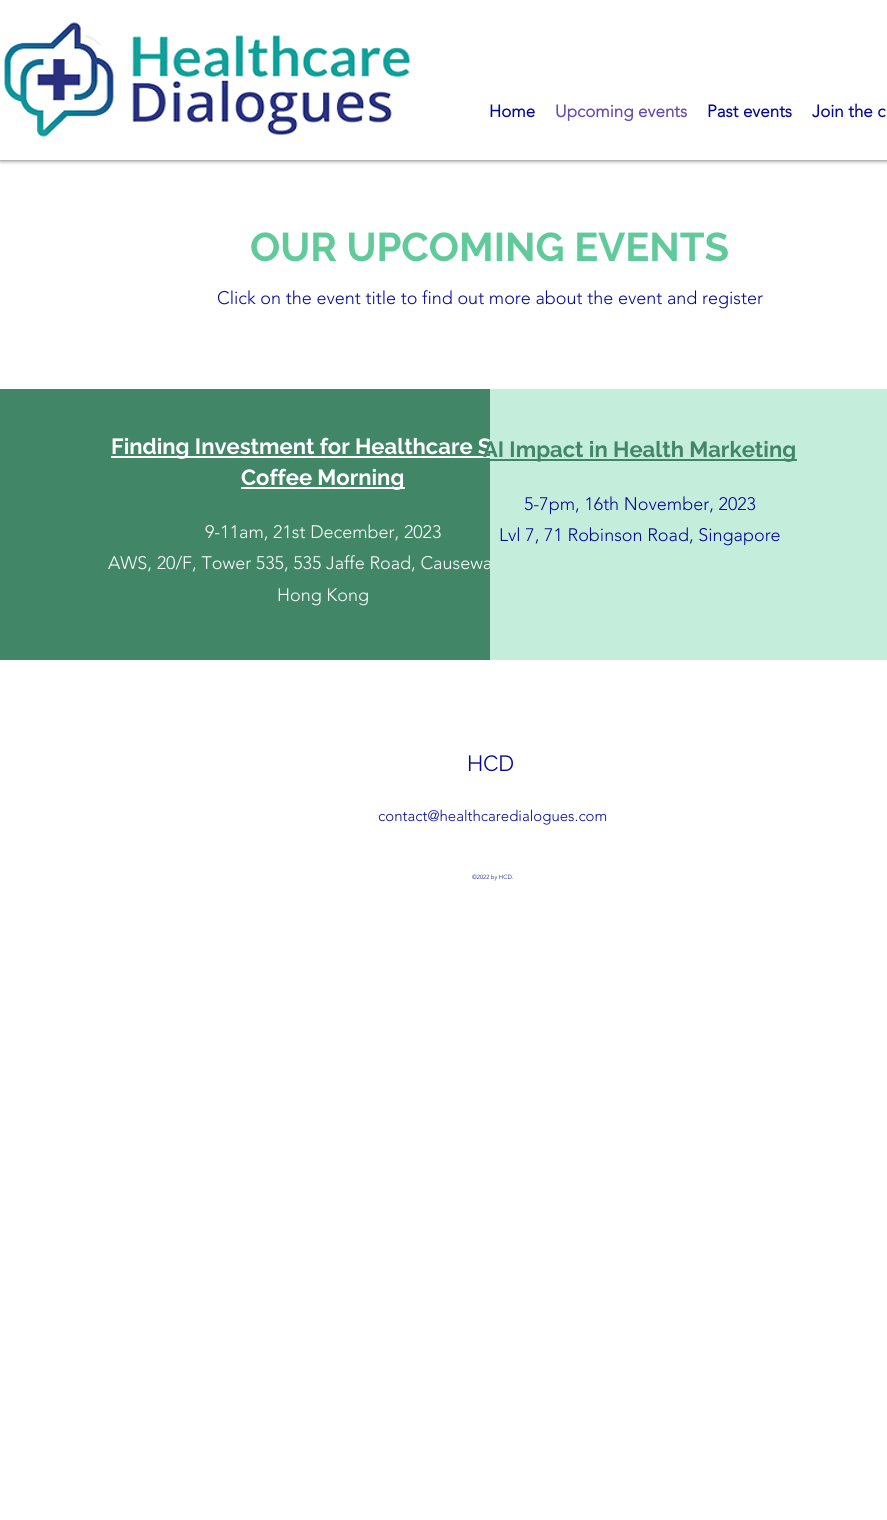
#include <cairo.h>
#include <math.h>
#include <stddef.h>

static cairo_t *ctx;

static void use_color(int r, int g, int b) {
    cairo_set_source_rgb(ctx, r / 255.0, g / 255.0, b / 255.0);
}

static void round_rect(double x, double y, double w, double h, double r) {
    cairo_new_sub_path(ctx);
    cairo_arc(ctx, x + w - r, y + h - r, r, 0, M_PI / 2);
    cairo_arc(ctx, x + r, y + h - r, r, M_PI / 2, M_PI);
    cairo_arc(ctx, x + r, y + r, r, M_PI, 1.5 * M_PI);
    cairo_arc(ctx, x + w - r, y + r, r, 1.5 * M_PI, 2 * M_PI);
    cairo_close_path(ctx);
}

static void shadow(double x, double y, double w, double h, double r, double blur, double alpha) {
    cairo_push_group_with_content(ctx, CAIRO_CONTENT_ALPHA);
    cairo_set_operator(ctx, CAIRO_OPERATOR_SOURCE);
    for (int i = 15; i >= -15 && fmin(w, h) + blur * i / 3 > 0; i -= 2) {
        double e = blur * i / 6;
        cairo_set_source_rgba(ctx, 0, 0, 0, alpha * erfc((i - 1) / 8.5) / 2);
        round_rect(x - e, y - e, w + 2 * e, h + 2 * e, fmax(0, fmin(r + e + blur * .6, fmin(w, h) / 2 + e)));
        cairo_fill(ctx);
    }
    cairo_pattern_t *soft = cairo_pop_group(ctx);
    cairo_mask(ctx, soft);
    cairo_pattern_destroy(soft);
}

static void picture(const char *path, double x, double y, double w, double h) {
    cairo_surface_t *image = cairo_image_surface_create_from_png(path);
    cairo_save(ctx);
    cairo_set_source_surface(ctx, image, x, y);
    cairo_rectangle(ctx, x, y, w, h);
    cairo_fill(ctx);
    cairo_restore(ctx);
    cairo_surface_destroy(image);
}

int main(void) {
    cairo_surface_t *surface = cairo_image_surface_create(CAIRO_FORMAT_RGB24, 887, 1520);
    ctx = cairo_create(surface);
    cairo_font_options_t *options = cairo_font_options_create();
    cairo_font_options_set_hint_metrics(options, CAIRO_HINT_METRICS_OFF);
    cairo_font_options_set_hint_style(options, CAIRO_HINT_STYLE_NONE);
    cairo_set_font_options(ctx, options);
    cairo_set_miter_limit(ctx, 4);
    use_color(255, 255, 255);
    cairo_paint(ctx);
    cairo_save(ctx);
    cairo_rectangle(ctx, 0, 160, 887, 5);
    cairo_clip(ctx);
    use_color(0, 0, 0);
    shadow(0, 0, 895, 160, 0, 2.5, 0.7);
    cairo_restore(ctx);
    picture("img1.png", 4, 22, 406, 115);
    cairo_select_font_face(ctx, "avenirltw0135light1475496", CAIRO_FONT_SLANT_NORMAL, CAIRO_FONT_WEIGHT_BOLD);
    cairo_set_font_size(ctx, 17);
    use_color(5, 10, 146);
    cairo_move_to(ctx, 489, 117);
    cairo_show_text(ctx, "Home");
    use_color(101, 75, 173);
    cairo_move_to(ctx, 555, 117);
    cairo_show_text(ctx, "Upcoming events");
    use_color(5, 10, 146);
    cairo_move_to(ctx, 707, 117);
    cairo_show_text(ctx, "Past events");
    cairo_move_to(ctx, 812, 117);
    cairo_show_text(ctx, "Join the c");
    cairo_select_font_face(ctx, "Raleway", CAIRO_FONT_SLANT_NORMAL, CAIRO_FONT_WEIGHT_BOLD);
    cairo_set_font_size(ctx, 40);
    use_color(97, 202, 155);
    cairo_move_to(ctx, 250, 261);
    cairo_show_text(ctx, "OUR UPCOMING EVENTS");
    cairo_select_font_face(ctx, "avenirltw0135light1475496 Light", CAIRO_FONT_SLANT_NORMAL, CAIRO_FONT_WEIGHT_NORMAL);
    cairo_set_font_size(ctx, 18);
    use_color(5, 10, 146);
    cairo_move_to(ctx, 217, 304);
    cairo_show_text(ctx, "Click on the event title to find out more about the event and register");
    use_color(65, 135, 103);
    cairo_rectangle(ctx, 0, 389, 490, 271);
    cairo_fill(ctx);
    use_color(255, 255, 255);
    cairo_rectangle(ctx, 111, 456, 379, 2);
    cairo_fill(ctx);
    cairo_select_font_face(ctx, "Raleway", CAIRO_FONT_SLANT_NORMAL, CAIRO_FONT_WEIGHT_BOLD);
    cairo_set_font_size(ctx, 22);
    cairo_move_to(ctx, 111, 454);
    cairo_show_text(ctx, "Finding Investment for Healthcare S");
    cairo_rectangle(ctx, 241, 487, 164, 2);
    cairo_fill(ctx);
    cairo_move_to(ctx, 241, 485);
    cairo_show_text(ctx, "Coffee Morning");
    cairo_select_font_face(ctx, "avenirltw0135light1475496 Light", CAIRO_FONT_SLANT_NORMAL, CAIRO_FONT_WEIGHT_NORMAL);
    cairo_set_font_size(ctx, 18);
    cairo_move_to(ctx, 205, 538);
    cairo_show_text(ctx, "9-11am, 21st December, 2023");
    cairo_move_to(ctx, 108, 569);
    cairo_show_text(ctx, "AWS, 20/F, Tower 535, 535 Jaffe Road, Causewa");
    cairo_move_to(ctx, 277, 601);
    cairo_show_text(ctx, "Hong Kong");
    use_color(196, 237, 219);
    cairo_rectangle(ctx, 490, 389, 397, 271);
    cairo_fill(ctx);
    use_color(65, 135, 103);
    cairo_rectangle(ctx, 483, 459, 314, 2);
    cairo_fill(ctx);
    cairo_select_font_face(ctx, "Raleway", CAIRO_FONT_SLANT_NORMAL, CAIRO_FONT_WEIGHT_BOLD);
    cairo_set_font_size(ctx, 22);
    cairo_move_to(ctx, 483, 457);
    cairo_show_text(ctx, "AI Impact in Health Marketing");
    cairo_select_font_face(ctx, "avenirltw0135light1475496 Light", CAIRO_FONT_SLANT_NORMAL, CAIRO_FONT_WEIGHT_NORMAL);
    cairo_set_font_size(ctx, 18);
    use_color(5, 10, 146);
    cairo_move_to(ctx, 524, 510);
    cairo_show_text(ctx, "5-7pm, 16th November, 2023");
    cairo_move_to(ctx, 499, 541);
    cairo_show_text(ctx, "Lvl 7, 71 Robinson Road, Singapore");
    cairo_select_font_face(ctx, "Raleway", CAIRO_FONT_SLANT_NORMAL, CAIRO_FONT_WEIGHT_NORMAL);
    cairo_set_font_size(ctx, 22);
    cairo_move_to(ctx, 467, 771);
    cairo_show_text(ctx, "HCD");
    cairo_select_font_face(ctx, "avenirltw0135light1475496 Light", CAIRO_FONT_SLANT_NORMAL, CAIRO_FONT_WEIGHT_NORMAL);
    cairo_set_font_size(ctx, 15);
    cairo_move_to(ctx, 378, 821);
    cairo_show_text(ctx, "contact@healthcaredialogues.com");
    cairo_set_font_size(ctx, 6);
    cairo_move_to(ctx, 472, 879);
    cairo_show_text(ctx, "©2022 by HCD.");
    cairo_surface_write_to_png(surface, "result.png");
    cairo_font_options_destroy(options);
    cairo_destroy(ctx);
    cairo_surface_destroy(surface);
    return 0;
}
